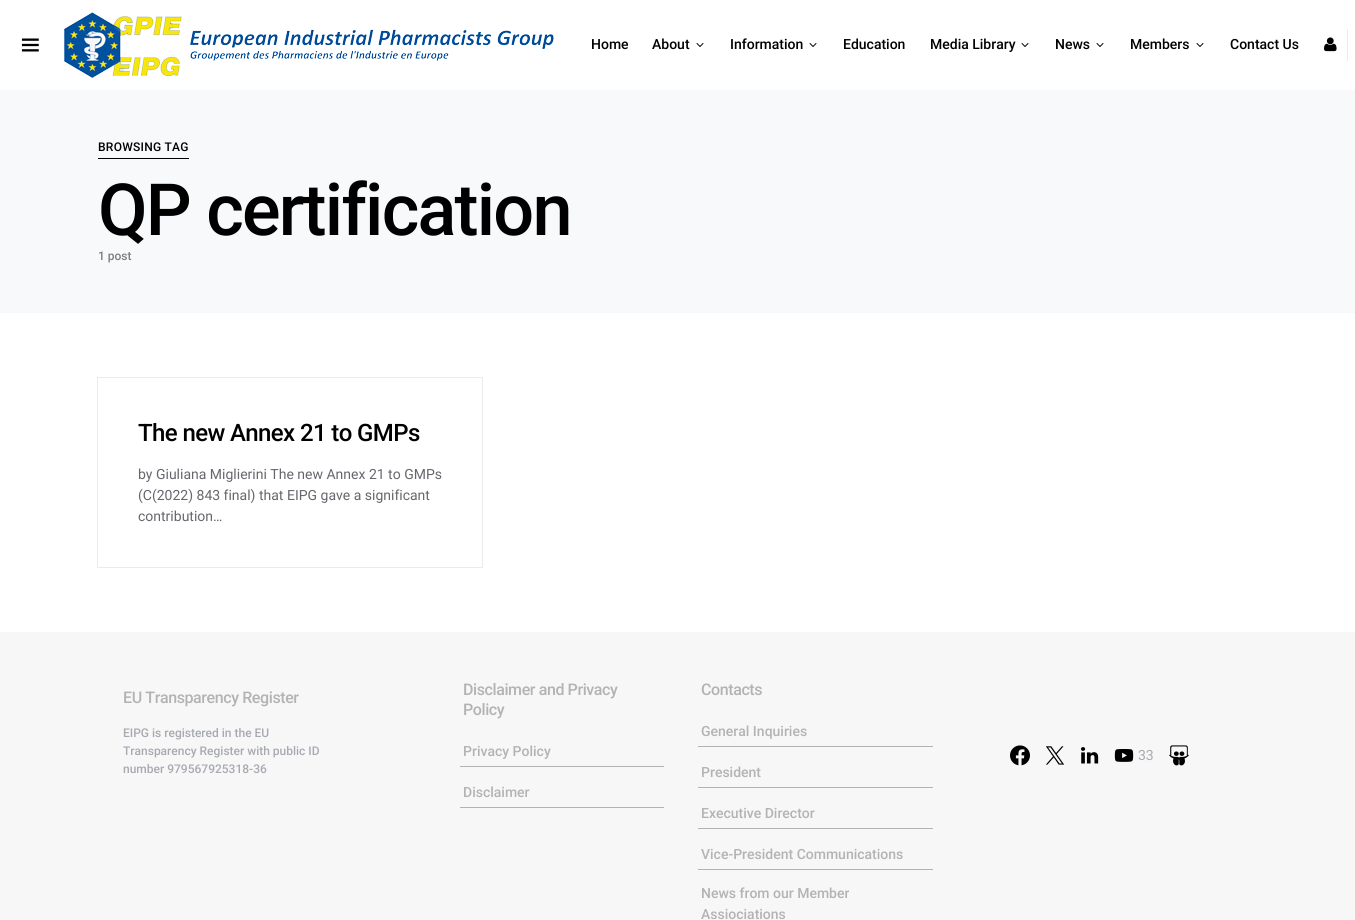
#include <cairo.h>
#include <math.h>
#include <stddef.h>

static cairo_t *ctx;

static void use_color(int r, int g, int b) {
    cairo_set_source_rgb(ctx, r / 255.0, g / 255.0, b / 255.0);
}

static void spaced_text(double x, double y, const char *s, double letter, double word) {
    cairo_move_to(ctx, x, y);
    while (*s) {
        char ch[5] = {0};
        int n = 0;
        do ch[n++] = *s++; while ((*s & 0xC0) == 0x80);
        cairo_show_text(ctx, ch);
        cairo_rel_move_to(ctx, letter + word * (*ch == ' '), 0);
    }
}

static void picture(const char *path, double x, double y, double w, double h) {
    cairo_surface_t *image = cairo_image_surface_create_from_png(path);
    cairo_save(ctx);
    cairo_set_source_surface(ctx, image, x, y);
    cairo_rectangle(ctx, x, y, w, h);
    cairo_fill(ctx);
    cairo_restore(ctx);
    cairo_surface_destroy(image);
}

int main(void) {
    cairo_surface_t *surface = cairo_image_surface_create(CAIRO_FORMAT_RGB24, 1355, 920);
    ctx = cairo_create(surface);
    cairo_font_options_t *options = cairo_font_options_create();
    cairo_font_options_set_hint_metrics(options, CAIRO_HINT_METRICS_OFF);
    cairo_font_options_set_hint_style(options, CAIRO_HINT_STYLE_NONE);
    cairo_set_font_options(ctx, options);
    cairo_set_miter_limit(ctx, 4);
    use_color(255, 255, 255);
    cairo_paint(ctx);
    picture("img1.png", 21, 38, 18, 14);
    picture("img2.png", 64, 12, 490, 66);
    cairo_select_font_face(ctx, "Roboto Medium", CAIRO_FONT_SLANT_NORMAL, CAIRO_FONT_WEIGHT_NORMAL);
    cairo_set_font_size(ctx, 14);
    use_color(0, 0, 0);
    cairo_move_to(ctx, 591, 49);
    cairo_show_text(ctx, "Home");
    cairo_move_to(ctx, 652, 49);
    cairo_show_text(ctx, "About");
    picture("img3.png", 696, 43, 8, 4);
    cairo_move_to(ctx, 730, 49);
    cairo_show_text(ctx, "Information");
    picture("img3.png", 809, 43, 8, 4);
    cairo_move_to(ctx, 843, 49);
    cairo_show_text(ctx, "Education");
    cairo_move_to(ctx, 930, 49);
    cairo_show_text(ctx, "Media Library");
    picture("img3.png", 1021, 43, 8, 4);
    cairo_move_to(ctx, 1055, 49);
    cairo_show_text(ctx, "News");
    picture("img3.png", 1096, 43, 8, 4);
    cairo_move_to(ctx, 1130, 49);
    cairo_show_text(ctx, "Members");
    picture("img3.png", 1196, 43, 8, 4);
    cairo_move_to(ctx, 1230, 49);
    cairo_show_text(ctx, "Contact Us");
    picture("img4.png", 1324, 37, 13, 15);
    use_color(233, 236, 239);
    cairo_rectangle(ctx, 1347, 29, 1, 32);
    cairo_fill(ctx);
    use_color(248, 249, 250);
    cairo_rectangle(ctx, 0, 90, 1355, 223);
    cairo_fill(ctx);
    cairo_set_font_size(ctx, 12);
    use_color(0, 0, 0);
    spaced_text(98, 151, "BROWSING TAG", 0.25, 0);
    cairo_rectangle(ctx, 98, 158, 91, 1);
    cairo_fill(ctx);
    cairo_set_font_size(ctx, 72);
    spaced_text(98, 235, "QP certification", -1.75, 0);
    cairo_set_font_size(ctx, 12);
    use_color(124, 125, 125);
    cairo_move_to(ctx, 98, 260);
    cairo_show_text(ctx, "1 post");
    cairo_rectangle(ctx, 97.5, 377.5, 385, 190);
    use_color(233, 236, 239);
    cairo_set_line_width(ctx, 1);
    cairo_stroke(ctx);
    cairo_set_font_size(ctx, 24);
    use_color(0, 0, 0);
    spaced_text(138, 441, "The new Annex 21 to GMPs", -0.6, 0);
    cairo_select_font_face(ctx, "Roboto", CAIRO_FONT_SLANT_NORMAL, CAIRO_FONT_WEIGHT_NORMAL);
    cairo_set_font_size(ctx, 14);
    use_color(102, 103, 109);
    cairo_move_to(ctx, 138, 479);
    cairo_show_text(ctx, "by Giuliana Miglierini The new Annex 21 to GMPs");
    cairo_move_to(ctx, 138, 500);
    cairo_show_text(ctx, "(C(2022) 843 final) that EIPG gave a significant");
    cairo_move_to(ctx, 138, 521);
    cairo_show_text(ctx, "contribution…");
    use_color(247, 247, 247);
    cairo_rectangle(ctx, 0, 632, 1355, 288);
    cairo_fill(ctx);
    cairo_select_font_face(ctx, "Roboto Medium", CAIRO_FONT_SLANT_NORMAL, CAIRO_FONT_WEIGHT_NORMAL);
    cairo_set_font_size(ctx, 16);
    use_color(179, 179, 179);
    spaced_text(123, 703, "EU Transparency Register", -0.4, 0);
    cairo_set_font_size(ctx, 12);
    use_color(168, 170, 178);
    cairo_move_to(ctx, 123, 737);
    cairo_show_text(ctx, "EIPG is registered in the EU");
    cairo_move_to(ctx, 123, 755);
    cairo_show_text(ctx, "Transparency Register with public ID");
    cairo_move_to(ctx, 123, 773);
    cairo_show_text(ctx, "number 979567925318-36");
    cairo_set_font_size(ctx, 16);
    use_color(179, 179, 179);
    spaced_text(463, 695, "Disclaimer and Privacy", -0.4, 0);
    spaced_text(463, 715, "Policy", -0.4, 0);
    cairo_rectangle(ctx, 460, 766, 204, 1);
    cairo_fill(ctx);
    cairo_set_font_size(ctx, 14);
    cairo_move_to(ctx, 463, 756);
    cairo_show_text(ctx, "Privacy Policy");
    cairo_rectangle(ctx, 460, 807, 204, 1);
    cairo_fill(ctx);
    cairo_move_to(ctx, 463, 797);
    cairo_show_text(ctx, "Disclaimer");
    cairo_set_font_size(ctx, 16);
    spaced_text(701, 695, "Contacts", -0.4, 0);
    cairo_rectangle(ctx, 698, 746, 235, 1);
    cairo_fill(ctx);
    cairo_set_font_size(ctx, 14);
    cairo_move_to(ctx, 701, 736);
    cairo_show_text(ctx, "General Inquiries");
    cairo_rectangle(ctx, 698, 787, 235, 1);
    cairo_fill(ctx);
    cairo_move_to(ctx, 701, 777);
    cairo_show_text(ctx, "President");
    cairo_rectangle(ctx, 698, 828, 235, 1);
    cairo_fill(ctx);
    cairo_move_to(ctx, 701, 818);
    cairo_show_text(ctx, "Executive Director");
    cairo_rectangle(ctx, 698, 869, 235, 1);
    cairo_fill(ctx);
    cairo_move_to(ctx, 701, 859);
    cairo_show_text(ctx, "Vice-President Communications");
    cairo_move_to(ctx, 701, 898);
    cairo_show_text(ctx, "News from our Member");
    cairo_move_to(ctx, 701, 919);
    cairo_show_text(ctx, "Assiociations");
    picture("img5.png", 1010, 745, 20, 21);
    picture("img6.png", 1046, 746, 18, 19);
    picture("img7.png", 1081, 747, 18, 17);
    picture("img8.png", 1114, 749, 20, 13);
    cairo_select_font_face(ctx, "Roboto", CAIRO_FONT_SLANT_NORMAL, CAIRO_FONT_WEIGHT_NORMAL);
    use_color(168, 170, 178);
    cairo_move_to(ctx, 1138, 760);
    cairo_show_text(ctx, "33");
    picture("img9.png", 1169, 745, 20, 21);
    cairo_surface_write_to_png(surface, "result.png");
    cairo_font_options_destroy(options);
    cairo_destroy(ctx);
    cairo_surface_destroy(surface);
    return 0;
}
